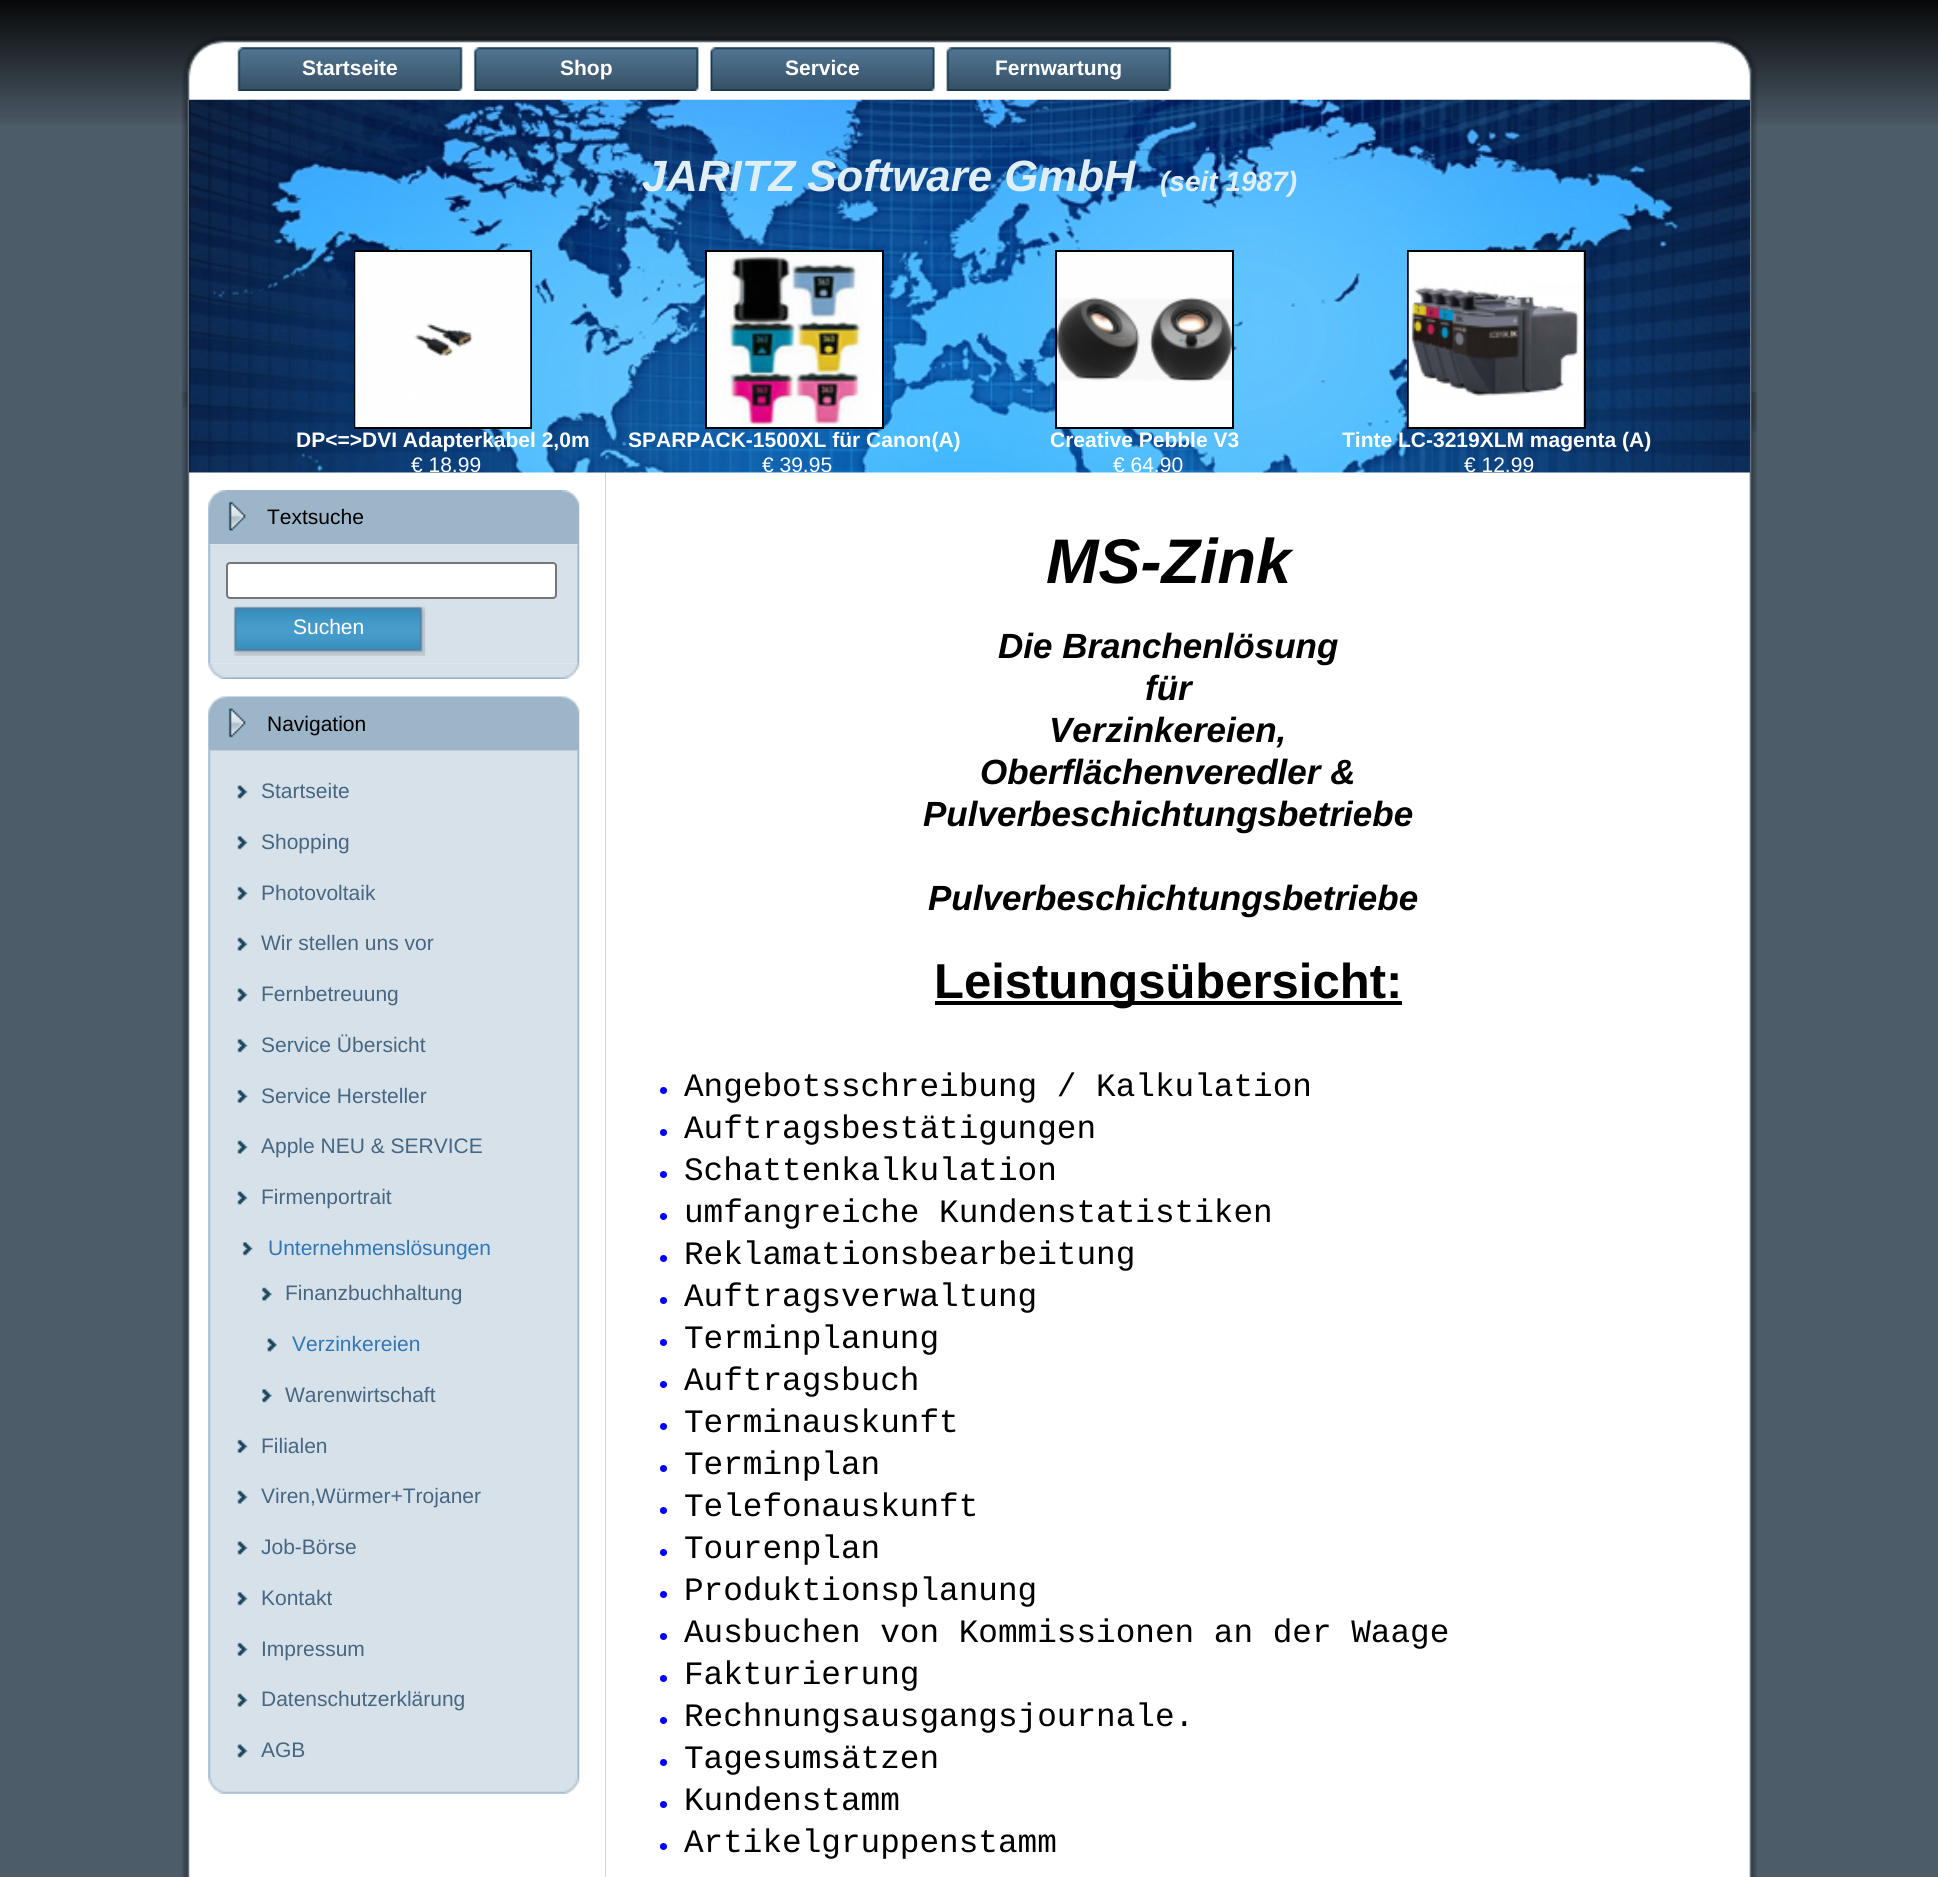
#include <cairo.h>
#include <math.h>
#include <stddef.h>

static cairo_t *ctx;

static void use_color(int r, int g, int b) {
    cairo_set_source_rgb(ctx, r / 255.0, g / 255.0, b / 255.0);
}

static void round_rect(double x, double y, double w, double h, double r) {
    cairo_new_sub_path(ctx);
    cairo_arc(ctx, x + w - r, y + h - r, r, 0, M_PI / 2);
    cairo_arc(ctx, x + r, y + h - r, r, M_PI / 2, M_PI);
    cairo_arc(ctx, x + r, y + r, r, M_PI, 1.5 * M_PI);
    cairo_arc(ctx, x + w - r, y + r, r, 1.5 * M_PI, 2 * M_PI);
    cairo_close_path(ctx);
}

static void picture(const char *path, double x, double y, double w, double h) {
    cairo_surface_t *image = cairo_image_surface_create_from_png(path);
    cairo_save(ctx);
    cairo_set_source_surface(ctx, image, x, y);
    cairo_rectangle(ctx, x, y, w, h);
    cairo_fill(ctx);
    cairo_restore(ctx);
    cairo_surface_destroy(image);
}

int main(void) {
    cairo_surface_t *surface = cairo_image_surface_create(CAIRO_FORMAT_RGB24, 1938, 1877);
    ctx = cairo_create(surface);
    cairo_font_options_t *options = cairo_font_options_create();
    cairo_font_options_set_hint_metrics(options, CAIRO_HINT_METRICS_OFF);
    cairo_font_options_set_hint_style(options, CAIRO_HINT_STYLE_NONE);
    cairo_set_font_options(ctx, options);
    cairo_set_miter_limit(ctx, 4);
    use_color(76, 92, 105);
    cairo_paint(ctx);
    picture("img1.png", 0, 0, 1938, 125);
    picture("img2.png", 182, 36, 1575, 437);
    picture("img3.png", 189, 99, 1561, 379);
    picture("img4.png", 237, 47, 226, 44);
    cairo_select_font_face(ctx, "Liberation Sans", CAIRO_FONT_SLANT_NORMAL, CAIRO_FONT_WEIGHT_BOLD);
    cairo_set_font_size(ctx, 21);
    use_color(255, 255, 255);
    cairo_move_to(ctx, 302, 75);
    cairo_show_text(ctx, "Startseite");
    picture("img5.png", 473, 47, 226, 44);
    cairo_move_to(ctx, 560, 75);
    cairo_show_text(ctx, "Shop");
    picture("img6.png", 710, 47, 225, 44);
    cairo_move_to(ctx, 785, 75);
    cairo_show_text(ctx, "Service");
    picture("img7.png", 946, 47, 226, 44);
    cairo_move_to(ctx, 995, 75);
    cairo_show_text(ctx, "Fernwartung");
    cairo_select_font_face(ctx, "Liberation Sans", CAIRO_FONT_SLANT_ITALIC, CAIRO_FONT_WEIGHT_BOLD);
    cairo_set_font_size(ctx, 43.75);
    use_color(224, 238, 246);
    cairo_move_to(ctx, 642, 191);
    cairo_show_text(ctx, "JARITZ Software GmbH");
    cairo_set_font_size(ctx, 28);
    cairo_move_to(ctx, 1160, 191);
    cairo_show_text(ctx, "(seit 1987)");
    cairo_rectangle(ctx, 355, 251, 176, 177);
    use_color(0, 0, 0);
    cairo_stroke(ctx);
    picture("img8.png", 355, 252, 176, 175);
    cairo_select_font_face(ctx, "Liberation Sans", CAIRO_FONT_SLANT_NORMAL, CAIRO_FONT_WEIGHT_BOLD);
    cairo_set_font_size(ctx, 21);
    use_color(255, 255, 255);
    cairo_move_to(ctx, 296, 447);
    cairo_show_text(ctx, "DP<=>DVI Adapterkabel 2,0m");
    picture("img12.png", 182, 472, 424, 1405);
    cairo_select_font_face(ctx, "Liberation Sans", CAIRO_FONT_SLANT_NORMAL, CAIRO_FONT_WEIGHT_NORMAL);
    cairo_move_to(ctx, 411, 472);
    cairo_show_text(ctx, "€ 18.99");
    cairo_rectangle(ctx, 706, 251, 177, 177);
    use_color(0, 0, 0);
    cairo_stroke(ctx);
    picture("img9.png", 707, 252, 175, 175);
    cairo_select_font_face(ctx, "Liberation Sans", CAIRO_FONT_SLANT_NORMAL, CAIRO_FONT_WEIGHT_BOLD);
    use_color(255, 255, 255);
    cairo_move_to(ctx, 628, 447);
    cairo_show_text(ctx, "SPARPACK-1500XL für Canon(A)");
    picture("img28.png", 605, 472, 1152, 1405);
    cairo_select_font_face(ctx, "Liberation Sans", CAIRO_FONT_SLANT_NORMAL, CAIRO_FONT_WEIGHT_NORMAL);
    cairo_move_to(ctx, 762, 472);
    cairo_show_text(ctx, "€ 39.95");
    cairo_rectangle(ctx, 1056, 251, 177, 177);
    use_color(0, 0, 0);
    cairo_stroke(ctx);
    picture("img10.png", 1057, 252, 175, 175);
    cairo_select_font_face(ctx, "Liberation Sans", CAIRO_FONT_SLANT_NORMAL, CAIRO_FONT_WEIGHT_BOLD);
    use_color(255, 255, 255);
    cairo_move_to(ctx, 1050, 447);
    cairo_show_text(ctx, "Creative Pebble V3");
    cairo_select_font_face(ctx, "Liberation Sans", CAIRO_FONT_SLANT_NORMAL, CAIRO_FONT_WEIGHT_NORMAL);
    cairo_move_to(ctx, 1113, 472);
    cairo_show_text(ctx, "€ 64.90");
    cairo_rectangle(ctx, 1408, 251, 177, 177);
    use_color(0, 0, 0);
    cairo_stroke(ctx);
    picture("img11.png", 1408, 252, 176, 175);
    cairo_select_font_face(ctx, "Liberation Sans", CAIRO_FONT_SLANT_NORMAL, CAIRO_FONT_WEIGHT_BOLD);
    use_color(255, 255, 255);
    cairo_move_to(ctx, 1342, 447);
    cairo_show_text(ctx, "Tinte LC-3219XLM magenta (A)");
    cairo_select_font_face(ctx, "Liberation Sans", CAIRO_FONT_SLANT_NORMAL, CAIRO_FONT_WEIGHT_NORMAL);
    cairo_move_to(ctx, 1464, 472);
    cairo_show_text(ctx, "€ 12.99");
    picture("img13.png", 208, 490, 372, 55);
    use_color(0, 0, 0);
    cairo_move_to(ctx, 267, 524);
    cairo_show_text(ctx, "Textsuche");
    picture("img14.png", 208, 544, 372, 120);
    use_color(255, 255, 255);
    round_rect(227, 563, 329, 35, 3);
    cairo_fill_preserve(ctx);
    use_color(118, 118, 118);
    cairo_stroke(ctx);
    picture("img15.png", 233, 606, 193, 50);
    use_color(255, 255, 255);
    cairo_move_to(ctx, 293, 634);
    cairo_show_text(ctx, "Suchen");
    picture("img16.png", 208, 663, 372, 16);
    picture("img17.png", 208, 696, 372, 55);
    use_color(0, 0, 0);
    cairo_move_to(ctx, 267, 731);
    cairo_show_text(ctx, "Navigation");
    picture("img18.png", 208, 750, 372, 1028);
    picture("img19.png", 237, 785, 11, 14);
    use_color(70, 102, 129);
    cairo_move_to(ctx, 261, 798);
    cairo_show_text(ctx, "Startseite");
    picture("img20.png", 237, 836, 11, 14);
    cairo_move_to(ctx, 261, 849);
    cairo_show_text(ctx, "Shopping");
    picture("img21.png", 237, 886, 11, 14);
    cairo_move_to(ctx, 261, 900);
    cairo_show_text(ctx, "Photovoltaik");
    picture("img22.png", 237, 937, 11, 14);
    cairo_move_to(ctx, 261, 950);
    cairo_show_text(ctx, "Wir stellen uns vor");
    picture("img19.png", 237, 988, 11, 14);
    cairo_move_to(ctx, 261, 1001);
    cairo_show_text(ctx, "Fernbetreuung");
    picture("img20.png", 237, 1039, 11, 14);
    cairo_move_to(ctx, 261, 1052);
    cairo_show_text(ctx, "Service Übersicht");
    picture("img21.png", 237, 1089, 11, 14);
    cairo_move_to(ctx, 261, 1103);
    cairo_show_text(ctx, "Service Hersteller");
    picture("img22.png", 237, 1140, 11, 14);
    cairo_move_to(ctx, 261, 1153);
    cairo_show_text(ctx, "Apple NEU & SERVICE");
    picture("img19.png", 237, 1191, 11, 14);
    cairo_move_to(ctx, 261, 1204);
    cairo_show_text(ctx, "Firmenportrait");
    picture("img23.png", 242, 1242, 11, 14);
    use_color(47, 119, 181);
    cairo_move_to(ctx, 268, 1255);
    cairo_show_text(ctx, "Unternehmenslösungen");
    picture("img24.png", 262, 1287, 10, 14);
    use_color(70, 102, 129);
    cairo_move_to(ctx, 285, 1300);
    cairo_show_text(ctx, "Finanzbuchhaltung");
    picture("img25.png", 267, 1338, 10, 14);
    use_color(47, 119, 181);
    cairo_move_to(ctx, 292, 1351);
    cairo_show_text(ctx, "Verzinkereien");
    picture("img26.png", 262, 1389, 10, 14);
    use_color(70, 102, 129);
    cairo_move_to(ctx, 285, 1402);
    cairo_show_text(ctx, "Warenwirtschaft");
    picture("img21.png", 237, 1439, 11, 14);
    cairo_move_to(ctx, 261, 1453);
    cairo_show_text(ctx, "Filialen");
    picture("img22.png", 237, 1490, 11, 14);
    cairo_move_to(ctx, 261, 1503);
    cairo_show_text(ctx, "Viren,Würmer+Trojaner");
    picture("img19.png", 237, 1541, 11, 14);
    cairo_move_to(ctx, 261, 1554);
    cairo_show_text(ctx, "Job-Börse");
    picture("img20.png", 237, 1592, 11, 14);
    cairo_move_to(ctx, 261, 1605);
    cairo_show_text(ctx, "Kontakt");
    picture("img21.png", 237, 1642, 11, 14);
    cairo_move_to(ctx, 261, 1656);
    cairo_show_text(ctx, "Impressum");
    picture("img22.png", 237, 1693, 11, 14);
    cairo_move_to(ctx, 261, 1706);
    cairo_show_text(ctx, "Datenschutzerklärung");
    picture("img19.png", 237, 1744, 11, 14);
    cairo_move_to(ctx, 261, 1757);
    cairo_show_text(ctx, "AGB");
    picture("img27.png", 208, 1778, 372, 16);
    cairo_select_font_face(ctx, "Liberation Sans", CAIRO_FONT_SLANT_ITALIC, CAIRO_FONT_WEIGHT_BOLD);
    cairo_set_font_size(ctx, 63);
    use_color(0, 0, 0);
    cairo_move_to(ctx, 1046, 583);
    cairo_show_text(ctx, "MS-Zink");
    cairo_set_font_size(ctx, 35);
    cairo_move_to(ctx, 998, 658);
    cairo_show_text(ctx, "Die Branchenlösung");
    cairo_move_to(ctx, 1145, 700);
    cairo_show_text(ctx, "für");
    cairo_move_to(ctx, 1049, 742);
    cairo_show_text(ctx, "Verzinkereien,");
    cairo_move_to(ctx, 980, 784);
    cairo_show_text(ctx, "Oberflächenveredler &");
    cairo_move_to(ctx, 923, 826);
    cairo_show_text(ctx, "Pulverbeschichtungsbetriebe");
    cairo_move_to(ctx, 928, 910);
    cairo_show_text(ctx, "Pulverbeschichtungsbetriebe");
    cairo_rectangle(ctx, 935, 1001, 467, 4);
    cairo_fill(ctx);
    cairo_select_font_face(ctx, "Liberation Sans", CAIRO_FONT_SLANT_NORMAL, CAIRO_FONT_WEIGHT_BOLD);
    cairo_set_font_size(ctx, 49);
    cairo_move_to(ctx, 934, 998);
    cairo_show_text(ctx, "Leistungsübersicht:");
    use_color(0, 0, 255);
    cairo_new_path(ctx);
    cairo_arc(ctx, 663.5, 1090.5, 3.5, 0, 2 * M_PI);
    cairo_fill(ctx);
    cairo_select_font_face(ctx, "Liberation Mono", CAIRO_FONT_SLANT_NORMAL, CAIRO_FONT_WEIGHT_NORMAL);
    cairo_set_font_size(ctx, 32.7);
    use_color(0, 0, 0);
    cairo_move_to(ctx, 684, 1096);
    cairo_show_text(ctx, "Angebotsschreibung / Kalkulation");
    use_color(0, 0, 255);
    cairo_new_path(ctx);
    cairo_arc(ctx, 663.5, 1132.5, 3.5, 0, 2 * M_PI);
    cairo_fill(ctx);
    use_color(0, 0, 0);
    cairo_move_to(ctx, 684, 1138);
    cairo_show_text(ctx, "Auftragsbestätigungen");
    use_color(0, 0, 255);
    cairo_new_path(ctx);
    cairo_arc(ctx, 663.5, 1174.5, 3.5, 0, 2 * M_PI);
    cairo_fill(ctx);
    use_color(0, 0, 0);
    cairo_move_to(ctx, 684, 1180);
    cairo_show_text(ctx, "Schattenkalkulation");
    use_color(0, 0, 255);
    cairo_new_path(ctx);
    cairo_arc(ctx, 663.5, 1216.5, 3.5, 0, 2 * M_PI);
    cairo_fill(ctx);
    use_color(0, 0, 0);
    cairo_move_to(ctx, 684, 1222);
    cairo_show_text(ctx, "umfangreiche Kundenstatistiken");
    use_color(0, 0, 255);
    cairo_new_path(ctx);
    cairo_arc(ctx, 663.5, 1258.5, 3.5, 0, 2 * M_PI);
    cairo_fill(ctx);
    use_color(0, 0, 0);
    cairo_move_to(ctx, 684, 1264);
    cairo_show_text(ctx, "Reklamationsbearbeitung");
    use_color(0, 0, 255);
    cairo_new_path(ctx);
    cairo_arc(ctx, 663.5, 1300.5, 3.5, 0, 2 * M_PI);
    cairo_fill(ctx);
    use_color(0, 0, 0);
    cairo_move_to(ctx, 684, 1306);
    cairo_show_text(ctx, "Auftragsverwaltung");
    use_color(0, 0, 255);
    cairo_new_path(ctx);
    cairo_arc(ctx, 663.5, 1342.5, 3.5, 0, 2 * M_PI);
    cairo_fill(ctx);
    use_color(0, 0, 0);
    cairo_move_to(ctx, 684, 1348);
    cairo_show_text(ctx, "Terminplanung");
    use_color(0, 0, 255);
    cairo_new_path(ctx);
    cairo_arc(ctx, 663.5, 1384.5, 3.5, 0, 2 * M_PI);
    cairo_fill(ctx);
    use_color(0, 0, 0);
    cairo_move_to(ctx, 684, 1390);
    cairo_show_text(ctx, "Auftragsbuch");
    use_color(0, 0, 255);
    cairo_new_path(ctx);
    cairo_arc(ctx, 663.5, 1426.5, 3.5, 0, 2 * M_PI);
    cairo_fill(ctx);
    use_color(0, 0, 0);
    cairo_move_to(ctx, 684, 1432);
    cairo_show_text(ctx, "Terminauskunft");
    use_color(0, 0, 255);
    cairo_new_path(ctx);
    cairo_arc(ctx, 663.5, 1468.5, 3.5, 0, 2 * M_PI);
    cairo_fill(ctx);
    use_color(0, 0, 0);
    cairo_move_to(ctx, 684, 1474);
    cairo_show_text(ctx, "Terminplan");
    use_color(0, 0, 255);
    cairo_new_path(ctx);
    cairo_arc(ctx, 663.5, 1510.5, 3.5, 0, 2 * M_PI);
    cairo_fill(ctx);
    use_color(0, 0, 0);
    cairo_move_to(ctx, 684, 1516);
    cairo_show_text(ctx, "Telefonauskunft");
    use_color(0, 0, 255);
    cairo_new_path(ctx);
    cairo_arc(ctx, 663.5, 1552.5, 3.5, 0, 2 * M_PI);
    cairo_fill(ctx);
    use_color(0, 0, 0);
    cairo_move_to(ctx, 684, 1558);
    cairo_show_text(ctx, "Tourenplan");
    use_color(0, 0, 255);
    cairo_new_path(ctx);
    cairo_arc(ctx, 663.5, 1594.5, 3.5, 0, 2 * M_PI);
    cairo_fill(ctx);
    use_color(0, 0, 0);
    cairo_move_to(ctx, 684, 1600);
    cairo_show_text(ctx, "Produktionsplanung");
    use_color(0, 0, 255);
    cairo_new_path(ctx);
    cairo_arc(ctx, 663.5, 1636.5, 3.5, 0, 2 * M_PI);
    cairo_fill(ctx);
    use_color(0, 0, 0);
    cairo_move_to(ctx, 684, 1642);
    cairo_show_text(ctx, "Ausbuchen von Kommissionen an der Waage");
    use_color(0, 0, 255);
    cairo_new_path(ctx);
    cairo_arc(ctx, 663.5, 1678.5, 3.5, 0, 2 * M_PI);
    cairo_fill(ctx);
    use_color(0, 0, 0);
    cairo_move_to(ctx, 684, 1684);
    cairo_show_text(ctx, "Fakturierung");
    use_color(0, 0, 255);
    cairo_new_path(ctx);
    cairo_arc(ctx, 663.5, 1720.5, 3.5, 0, 2 * M_PI);
    cairo_fill(ctx);
    use_color(0, 0, 0);
    cairo_move_to(ctx, 684, 1726);
    cairo_show_text(ctx, "Rechnungsausgangsjournale.");
    use_color(0, 0, 255);
    cairo_new_path(ctx);
    cairo_arc(ctx, 663.5, 1762.5, 3.5, 0, 2 * M_PI);
    cairo_fill(ctx);
    use_color(0, 0, 0);
    cairo_move_to(ctx, 684, 1768);
    cairo_show_text(ctx, "Tagesumsätzen");
    use_color(0, 0, 255);
    cairo_new_path(ctx);
    cairo_arc(ctx, 663.5, 1804.5, 3.5, 0, 2 * M_PI);
    cairo_fill(ctx);
    use_color(0, 0, 0);
    cairo_move_to(ctx, 684, 1810);
    cairo_show_text(ctx, "Kundenstamm");
    use_color(0, 0, 255);
    cairo_new_path(ctx);
    cairo_arc(ctx, 663.5, 1846.5, 3.5, 0, 2 * M_PI);
    cairo_fill(ctx);
    use_color(0, 0, 0);
    cairo_move_to(ctx, 684, 1852);
    cairo_show_text(ctx, "Artikelgruppenstamm");
    cairo_surface_write_to_png(surface, "result.png");
    cairo_font_options_destroy(options);
    cairo_destroy(ctx);
    cairo_surface_destroy(surface);
    return 0;
}
